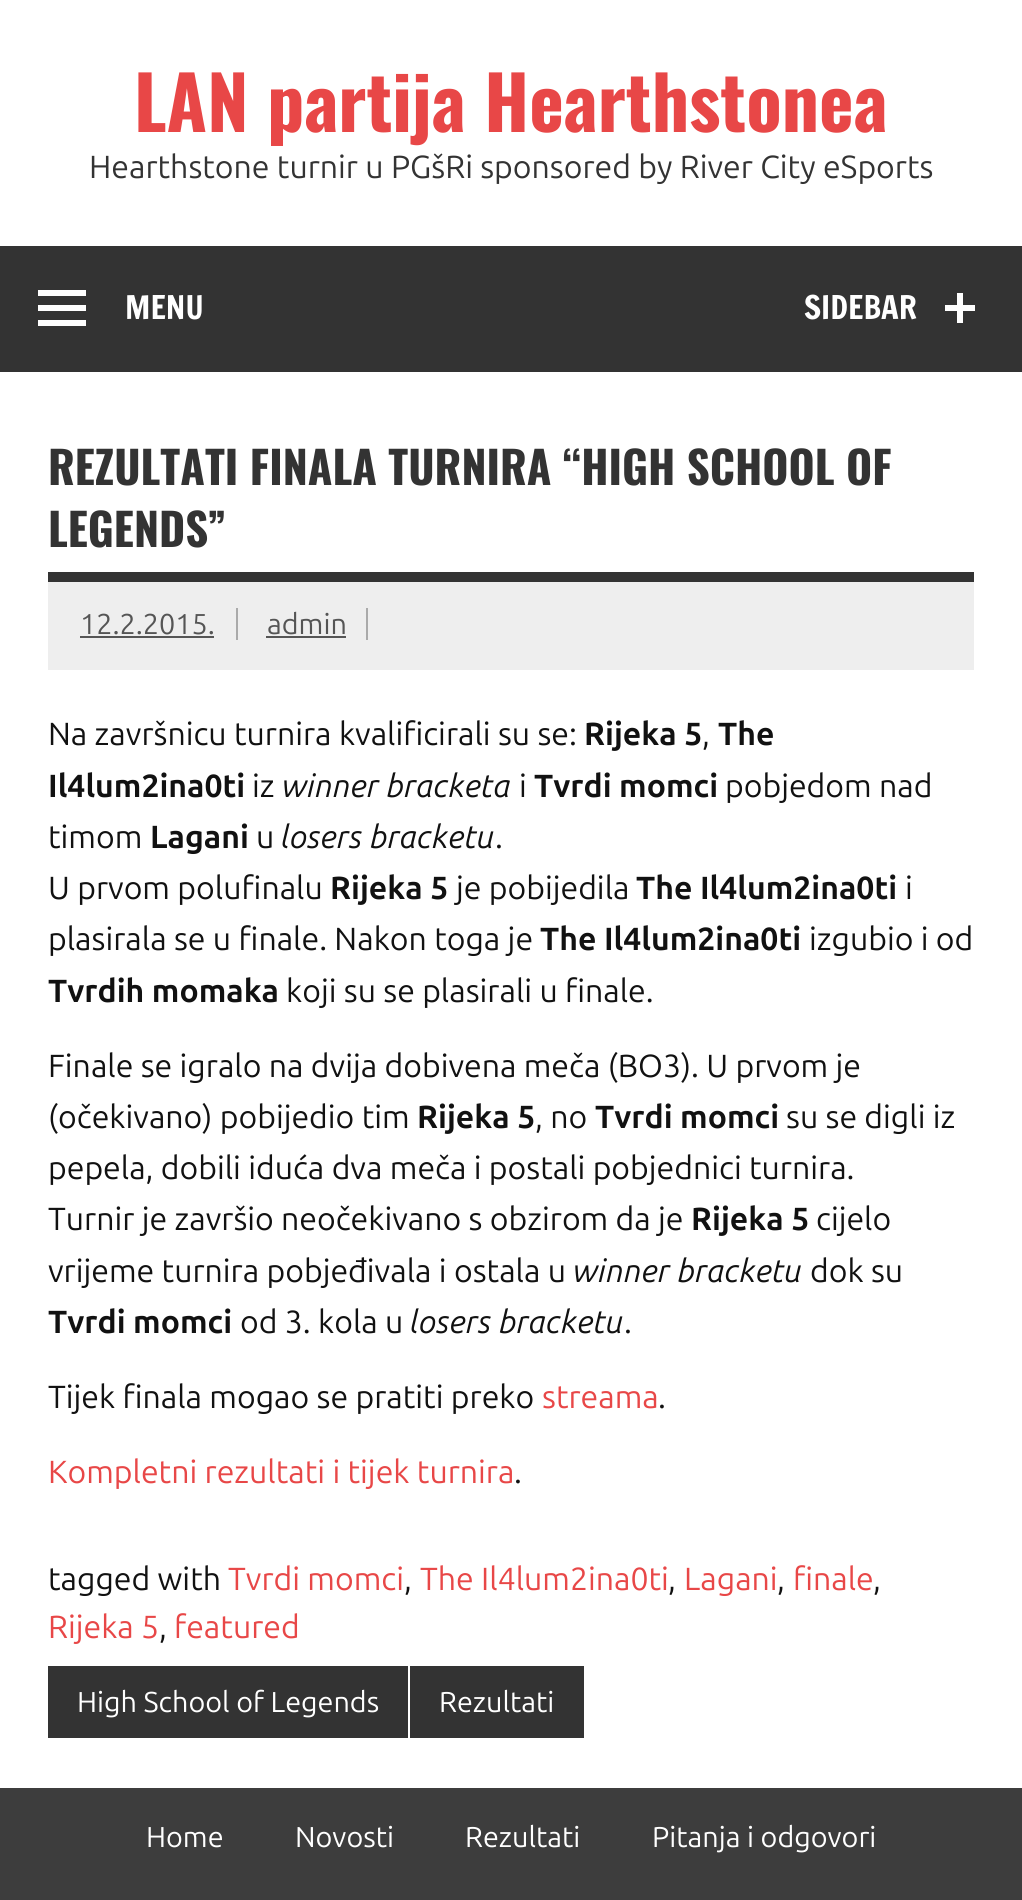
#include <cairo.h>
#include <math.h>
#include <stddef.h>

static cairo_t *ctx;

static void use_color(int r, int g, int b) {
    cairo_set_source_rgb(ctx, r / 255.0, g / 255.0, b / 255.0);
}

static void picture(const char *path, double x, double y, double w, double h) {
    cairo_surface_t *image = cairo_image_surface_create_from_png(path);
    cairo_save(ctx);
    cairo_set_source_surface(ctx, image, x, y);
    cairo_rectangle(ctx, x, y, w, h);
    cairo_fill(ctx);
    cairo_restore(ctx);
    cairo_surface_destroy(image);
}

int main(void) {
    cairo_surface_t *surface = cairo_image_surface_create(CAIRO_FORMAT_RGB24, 1022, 1900);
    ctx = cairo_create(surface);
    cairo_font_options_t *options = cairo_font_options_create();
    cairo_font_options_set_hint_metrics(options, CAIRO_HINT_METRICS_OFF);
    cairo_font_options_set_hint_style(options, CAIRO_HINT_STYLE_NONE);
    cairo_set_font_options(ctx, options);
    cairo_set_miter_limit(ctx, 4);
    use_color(255, 255, 255);
    cairo_paint(ctx);
    cairo_select_font_face(ctx, "Oswald", CAIRO_FONT_SLANT_NORMAL, CAIRO_FONT_WEIGHT_BOLD);
    cairo_set_font_size(ctx, 73.6);
    use_color(232, 71, 71);
    cairo_move_to(ctx, 134, 132);
    cairo_show_text(ctx, "LAN partija Hearthstonea");
    cairo_select_font_face(ctx, "Ubuntu", CAIRO_FONT_SLANT_NORMAL, CAIRO_FONT_WEIGHT_NORMAL);
    cairo_set_font_size(ctx, 32);
    use_color(51, 51, 51);
    cairo_move_to(ctx, 89, 178);
    cairo_show_text(ctx, "Hearthstone turnir u PGšRi sponsored by River City eSports");
    cairo_rectangle(ctx, 0, 246, 1022, 126);
    cairo_fill(ctx);
    use_color(255, 255, 255);
    cairo_new_path(ctx);
    cairo_move_to(ctx, 38, 326);
    cairo_line_to(ctx, 38, 320);
    cairo_line_to(ctx, 86, 320);
    cairo_line_to(ctx, 86, 326);
    cairo_close_path(ctx);
    cairo_move_to(ctx, 38, 290);
    cairo_line_to(ctx, 86, 290);
    cairo_line_to(ctx, 86, 296);
    cairo_line_to(ctx, 38, 296);
    cairo_close_path(ctx);
    cairo_move_to(ctx, 38, 311);
    cairo_line_to(ctx, 38, 305);
    cairo_line_to(ctx, 86, 305);
    cairo_line_to(ctx, 86, 311);
    cairo_close_path(ctx);
    cairo_fill(ctx);
    cairo_select_font_face(ctx, "Francois One", CAIRO_FONT_SLANT_NORMAL, CAIRO_FONT_WEIGHT_NORMAL);
    cairo_move_to(ctx, 125, 319);
    cairo_show_text(ctx, "MENU");
    cairo_move_to(ctx, 804, 319);
    cairo_show_text(ctx, "SIDEBAR");
    picture("img1.png", 945, 293, 30, 30);
    use_color(51, 51, 51);
    cairo_rectangle(ctx, 48, 572, 926, 10);
    cairo_fill(ctx);
    cairo_select_font_face(ctx, "Oswald", CAIRO_FONT_SLANT_NORMAL, CAIRO_FONT_WEIGHT_BOLD);
    cairo_set_font_size(ctx, 44.75);
    cairo_move_to(ctx, 48, 485);
    cairo_show_text(ctx, "REZULTATI FINALA TURNIRA “HIGH SCHOOL OF");
    cairo_move_to(ctx, 48, 547);
    cairo_show_text(ctx, "LEGENDS”");
    use_color(238, 238, 238);
    cairo_rectangle(ctx, 48, 582, 926, 88);
    cairo_fill(ctx);
    cairo_select_font_face(ctx, "Ubuntu", CAIRO_FONT_SLANT_NORMAL, CAIRO_FONT_WEIGHT_NORMAL);
    cairo_set_font_size(ctx, 28.75);
    use_color(85, 85, 85);
    cairo_move_to(ctx, 80, 634);
    cairo_show_text(ctx, "12.2.2015.");
    use_color(170, 170, 170);
    cairo_rectangle(ctx, 236, 608, 2, 32);
    cairo_fill(ctx);
    use_color(85, 85, 85);
    cairo_rectangle(ctx, 80, 636, 134, 2);
    cairo_fill(ctx);
    cairo_move_to(ctx, 267, 634);
    cairo_show_text(ctx, "admin");
    use_color(170, 170, 170);
    cairo_rectangle(ctx, 366, 608, 2, 32);
    cairo_fill(ctx);
    use_color(85, 85, 85);
    cairo_rectangle(ctx, 266, 636, 80, 2);
    cairo_fill(ctx);
    cairo_set_font_size(ctx, 32);
    use_color(17, 17, 17);
    cairo_move_to(ctx, 48, 745);
    cairo_show_text(ctx, "Na završnicu turnira kvalificirali su se:");
    cairo_select_font_face(ctx, "Ubuntu", CAIRO_FONT_SLANT_NORMAL, CAIRO_FONT_WEIGHT_BOLD);
    cairo_move_to(ctx, 584, 745);
    cairo_show_text(ctx, "Rijeka 5");
    cairo_select_font_face(ctx, "Ubuntu", CAIRO_FONT_SLANT_NORMAL, CAIRO_FONT_WEIGHT_NORMAL);
    cairo_move_to(ctx, 702, 745);
    cairo_show_text(ctx, ",");
    cairo_select_font_face(ctx, "Ubuntu", CAIRO_FONT_SLANT_NORMAL, CAIRO_FONT_WEIGHT_BOLD);
    cairo_move_to(ctx, 718, 745);
    cairo_show_text(ctx, "The");
    cairo_move_to(ctx, 48, 797);
    cairo_show_text(ctx, "Il4lum2ina0ti");
    cairo_select_font_face(ctx, "Ubuntu", CAIRO_FONT_SLANT_NORMAL, CAIRO_FONT_WEIGHT_NORMAL);
    cairo_move_to(ctx, 252, 797);
    cairo_show_text(ctx, "iz");
    cairo_select_font_face(ctx, "Ubuntu", CAIRO_FONT_SLANT_ITALIC, CAIRO_FONT_WEIGHT_NORMAL);
    cairo_move_to(ctx, 282, 797);
    cairo_show_text(ctx, "winner bracketa");
    cairo_select_font_face(ctx, "Ubuntu", CAIRO_FONT_SLANT_NORMAL, CAIRO_FONT_WEIGHT_NORMAL);
    cairo_move_to(ctx, 519, 797);
    cairo_show_text(ctx, "i");
    cairo_select_font_face(ctx, "Ubuntu", CAIRO_FONT_SLANT_NORMAL, CAIRO_FONT_WEIGHT_BOLD);
    cairo_move_to(ctx, 534, 797);
    cairo_show_text(ctx, "Tvrdi momci");
    cairo_select_font_face(ctx, "Ubuntu", CAIRO_FONT_SLANT_NORMAL, CAIRO_FONT_WEIGHT_NORMAL);
    cairo_move_to(ctx, 725, 797);
    cairo_show_text(ctx, "pobjedom nad");
    cairo_move_to(ctx, 48, 848);
    cairo_show_text(ctx, "timom");
    cairo_select_font_face(ctx, "Ubuntu", CAIRO_FONT_SLANT_NORMAL, CAIRO_FONT_WEIGHT_BOLD);
    cairo_move_to(ctx, 150, 848);
    cairo_show_text(ctx, "Lagani");
    cairo_select_font_face(ctx, "Ubuntu", CAIRO_FONT_SLANT_NORMAL, CAIRO_FONT_WEIGHT_NORMAL);
    cairo_move_to(ctx, 256, 848);
    cairo_show_text(ctx, "u");
    cairo_select_font_face(ctx, "Ubuntu", CAIRO_FONT_SLANT_ITALIC, CAIRO_FONT_WEIGHT_NORMAL);
    cairo_move_to(ctx, 281, 848);
    cairo_show_text(ctx, "losers bracketu");
    cairo_select_font_face(ctx, "Ubuntu", CAIRO_FONT_SLANT_NORMAL, CAIRO_FONT_WEIGHT_NORMAL);
    cairo_move_to(ctx, 495, 848);
    cairo_show_text(ctx, ".");
    cairo_move_to(ctx, 48, 899);
    cairo_show_text(ctx, "U prvom polufinalu");
    cairo_select_font_face(ctx, "Ubuntu", CAIRO_FONT_SLANT_NORMAL, CAIRO_FONT_WEIGHT_BOLD);
    cairo_move_to(ctx, 330, 899);
    cairo_show_text(ctx, "Rijeka 5");
    cairo_select_font_face(ctx, "Ubuntu", CAIRO_FONT_SLANT_NORMAL, CAIRO_FONT_WEIGHT_NORMAL);
    cairo_move_to(ctx, 456, 899);
    cairo_show_text(ctx, "je pobijedila");
    cairo_select_font_face(ctx, "Ubuntu", CAIRO_FONT_SLANT_NORMAL, CAIRO_FONT_WEIGHT_BOLD);
    cairo_move_to(ctx, 636, 899);
    cairo_show_text(ctx, "The Il4lum2ina0ti");
    cairo_select_font_face(ctx, "Ubuntu", CAIRO_FONT_SLANT_NORMAL, CAIRO_FONT_WEIGHT_NORMAL);
    cairo_move_to(ctx, 905, 899);
    cairo_show_text(ctx, "i");
    cairo_move_to(ctx, 48, 950);
    cairo_show_text(ctx, "plasirala se u finale. Nakon toga je");
    cairo_select_font_face(ctx, "Ubuntu", CAIRO_FONT_SLANT_NORMAL, CAIRO_FONT_WEIGHT_BOLD);
    cairo_move_to(ctx, 540, 950);
    cairo_show_text(ctx, "The Il4lum2ina0ti");
    cairo_select_font_face(ctx, "Ubuntu", CAIRO_FONT_SLANT_NORMAL, CAIRO_FONT_WEIGHT_NORMAL);
    cairo_move_to(ctx, 809, 950);
    cairo_show_text(ctx, "izgubio i od");
    cairo_select_font_face(ctx, "Ubuntu", CAIRO_FONT_SLANT_NORMAL, CAIRO_FONT_WEIGHT_BOLD);
    cairo_move_to(ctx, 48, 1002);
    cairo_show_text(ctx, "Tvrdih momaka");
    cairo_select_font_face(ctx, "Ubuntu", CAIRO_FONT_SLANT_NORMAL, CAIRO_FONT_WEIGHT_NORMAL);
    cairo_move_to(ctx, 286, 1002);
    cairo_show_text(ctx, "koji su se plasirali u finale.");
    cairo_move_to(ctx, 48, 1077);
    cairo_show_text(ctx, "Finale se igralo na dvija dobivena meča (BO3). U prvom je");
    cairo_move_to(ctx, 48, 1128);
    cairo_show_text(ctx, "(očekivano) pobijedio tim");
    cairo_select_font_face(ctx, "Ubuntu", CAIRO_FONT_SLANT_NORMAL, CAIRO_FONT_WEIGHT_BOLD);
    cairo_move_to(ctx, 417, 1128);
    cairo_show_text(ctx, "Rijeka 5");
    cairo_select_font_face(ctx, "Ubuntu", CAIRO_FONT_SLANT_NORMAL, CAIRO_FONT_WEIGHT_NORMAL);
    cairo_move_to(ctx, 535, 1128);
    cairo_show_text(ctx, ", no");
    cairo_select_font_face(ctx, "Ubuntu", CAIRO_FONT_SLANT_NORMAL, CAIRO_FONT_WEIGHT_BOLD);
    cairo_move_to(ctx, 595, 1128);
    cairo_show_text(ctx, "Tvrdi momci");
    cairo_select_font_face(ctx, "Ubuntu", CAIRO_FONT_SLANT_NORMAL, CAIRO_FONT_WEIGHT_NORMAL);
    cairo_move_to(ctx, 786, 1128);
    cairo_show_text(ctx, "su se digli iz");
    cairo_move_to(ctx, 48, 1179);
    cairo_show_text(ctx, "pepela, dobili iduća dva meča i postali pobjednici turnira.");
    cairo_move_to(ctx, 48, 1230);
    cairo_show_text(ctx, "Turnir je završio neočekivano s obzirom da je");
    cairo_select_font_face(ctx, "Ubuntu", CAIRO_FONT_SLANT_NORMAL, CAIRO_FONT_WEIGHT_BOLD);
    cairo_move_to(ctx, 691, 1230);
    cairo_show_text(ctx, "Rijeka 5");
    cairo_select_font_face(ctx, "Ubuntu", CAIRO_FONT_SLANT_NORMAL, CAIRO_FONT_WEIGHT_NORMAL);
    cairo_move_to(ctx, 816, 1230);
    cairo_show_text(ctx, "cijelo");
    cairo_move_to(ctx, 48, 1282);
    cairo_show_text(ctx, "vrijeme turnira pobjeđivala i ostala u");
    cairo_select_font_face(ctx, "Ubuntu", CAIRO_FONT_SLANT_ITALIC, CAIRO_FONT_WEIGHT_NORMAL);
    cairo_move_to(ctx, 573, 1282);
    cairo_show_text(ctx, "winner bracketu");
    cairo_select_font_face(ctx, "Ubuntu", CAIRO_FONT_SLANT_NORMAL, CAIRO_FONT_WEIGHT_NORMAL);
    cairo_move_to(ctx, 810, 1282);
    cairo_show_text(ctx, "dok su");
    cairo_select_font_face(ctx, "Ubuntu", CAIRO_FONT_SLANT_NORMAL, CAIRO_FONT_WEIGHT_BOLD);
    cairo_move_to(ctx, 48, 1333);
    cairo_show_text(ctx, "Tvrdi momci");
    cairo_select_font_face(ctx, "Ubuntu", CAIRO_FONT_SLANT_NORMAL, CAIRO_FONT_WEIGHT_NORMAL);
    cairo_move_to(ctx, 240, 1333);
    cairo_show_text(ctx, "od 3. kola u");
    cairo_select_font_face(ctx, "Ubuntu", CAIRO_FONT_SLANT_ITALIC, CAIRO_FONT_WEIGHT_NORMAL);
    cairo_move_to(ctx, 410, 1333);
    cairo_show_text(ctx, "losers bracketu");
    cairo_select_font_face(ctx, "Ubuntu", CAIRO_FONT_SLANT_NORMAL, CAIRO_FONT_WEIGHT_NORMAL);
    cairo_move_to(ctx, 624, 1333);
    cairo_show_text(ctx, ".");
    cairo_move_to(ctx, 48, 1408);
    cairo_show_text(ctx, "Tijek finala mogao se pratiti preko");
    use_color(232, 71, 71);
    cairo_move_to(ctx, 542, 1408);
    cairo_show_text(ctx, "streama");
    use_color(17, 17, 17);
    cairo_move_to(ctx, 658, 1408);
    cairo_show_text(ctx, ".");
    use_color(232, 71, 71);
    cairo_move_to(ctx, 48, 1483);
    cairo_show_text(ctx, "Kompletni rezultati i tijek turnira");
    use_color(17, 17, 17);
    cairo_move_to(ctx, 514, 1483);
    cairo_show_text(ctx, ".");
    cairo_move_to(ctx, 48, 1590);
    cairo_show_text(ctx, "tagged with");
    use_color(232, 71, 71);
    cairo_move_to(ctx, 228, 1590);
    cairo_show_text(ctx, "Tvrdi momci");
    use_color(17, 17, 17);
    cairo_move_to(ctx, 404, 1590);
    cairo_show_text(ctx, ",");
    use_color(232, 71, 71);
    cairo_move_to(ctx, 420, 1590);
    cairo_show_text(ctx, "The Il4lum2ina0ti");
    use_color(17, 17, 17);
    cairo_move_to(ctx, 668, 1590);
    cairo_show_text(ctx, ",");
    use_color(232, 71, 71);
    cairo_move_to(ctx, 684, 1590);
    cairo_show_text(ctx, "Lagani");
    use_color(17, 17, 17);
    cairo_move_to(ctx, 777, 1590);
    cairo_show_text(ctx, ",");
    use_color(232, 71, 71);
    cairo_move_to(ctx, 793, 1590);
    cairo_show_text(ctx, "finale");
    use_color(17, 17, 17);
    cairo_move_to(ctx, 873, 1590);
    cairo_show_text(ctx, ",");
    use_color(232, 71, 71);
    cairo_move_to(ctx, 48, 1638);
    cairo_show_text(ctx, "Rijeka 5");
    use_color(17, 17, 17);
    cairo_move_to(ctx, 159, 1638);
    cairo_show_text(ctx, ",");
    use_color(232, 71, 71);
    cairo_move_to(ctx, 174, 1638);
    cairo_show_text(ctx, "featured");
    use_color(51, 51, 51);
    cairo_rectangle(ctx, 48, 1666, 360, 72);
    cairo_fill(ctx);
    cairo_set_font_size(ctx, 28.75);
    use_color(255, 255, 255);
    cairo_move_to(ctx, 77, 1712);
    cairo_show_text(ctx, "High School of Legends");
    use_color(51, 51, 51);
    cairo_rectangle(ctx, 410, 1666, 174, 72);
    cairo_fill(ctx);
    use_color(255, 255, 255);
    cairo_move_to(ctx, 439, 1712);
    cairo_show_text(ctx, "Rezultati");
    use_color(61, 61, 61);
    cairo_rectangle(ctx, 0, 1788, 1022, 112);
    cairo_fill(ctx);
    use_color(255, 255, 255);
    cairo_move_to(ctx, 146, 1847);
    cairo_show_text(ctx, "Home");
    cairo_move_to(ctx, 295, 1847);
    cairo_show_text(ctx, "Novosti");
    cairo_move_to(ctx, 465, 1847);
    cairo_show_text(ctx, "Rezultati");
    cairo_move_to(ctx, 652, 1847);
    cairo_show_text(ctx, "Pitanja i odgovori");
    cairo_surface_write_to_png(surface, "result.png");
    cairo_font_options_destroy(options);
    cairo_destroy(ctx);
    cairo_surface_destroy(surface);
    return 0;
}
